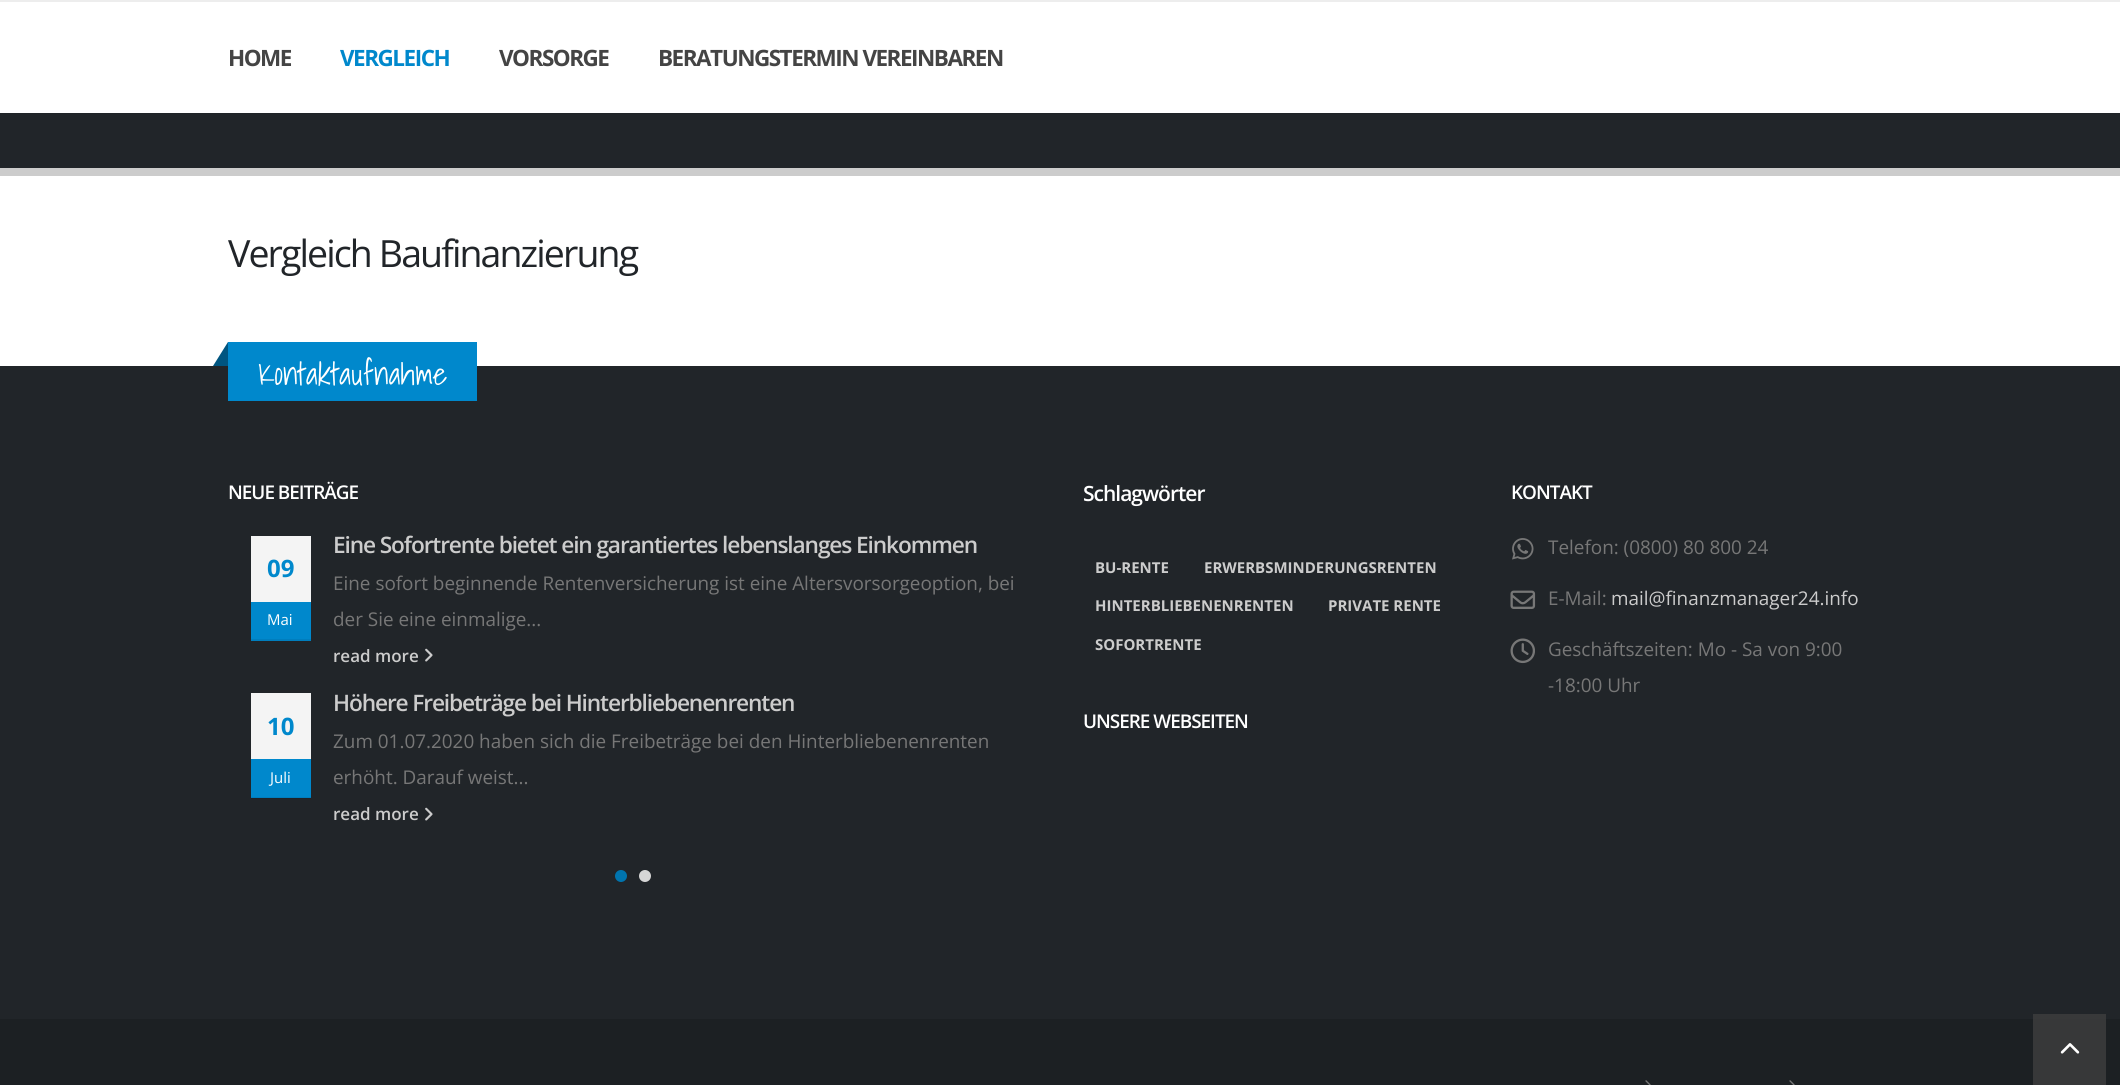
#include <cairo.h>
#include <math.h>
#include <stddef.h>

static cairo_t *ctx;

static void use_color(int r, int g, int b) {
    cairo_set_source_rgb(ctx, r / 255.0, g / 255.0, b / 255.0);
}

static void spaced_text(double x, double y, const char *s, double letter, double word) {
    cairo_move_to(ctx, x, y);
    while (*s) {
        char ch[5] = {0};
        int n = 0;
        do ch[n++] = *s++; while ((*s & 0xC0) == 0x80);
        cairo_show_text(ctx, ch);
        cairo_rel_move_to(ctx, letter + word * (*ch == ' '), 0);
    }
}

static void round_rect(double x, double y, double w, double h, double r) {
    cairo_new_sub_path(ctx);
    cairo_arc(ctx, x + w - r, y + h - r, r, 0, M_PI / 2);
    cairo_arc(ctx, x + r, y + h - r, r, M_PI / 2, M_PI);
    cairo_arc(ctx, x + r, y + r, r, M_PI, 1.5 * M_PI);
    cairo_arc(ctx, x + w - r, y + r, r, 1.5 * M_PI, 2 * M_PI);
    cairo_close_path(ctx);
}

static void shadow(double x, double y, double w, double h, double r, double blur, double alpha) {
    cairo_push_group_with_content(ctx, CAIRO_CONTENT_ALPHA);
    cairo_set_operator(ctx, CAIRO_OPERATOR_SOURCE);
    for (int i = 15; i >= -15 && fmin(w, h) + blur * i / 3 > 0; i -= 2) {
        double e = blur * i / 6;
        cairo_set_source_rgba(ctx, 0, 0, 0, alpha * erfc((i - 1) / 8.5) / 2);
        round_rect(x - e, y - e, w + 2 * e, h + 2 * e, fmax(0, fmin(r + e + blur * .6, fmin(w, h) / 2 + e)));
        cairo_fill(ctx);
    }
    cairo_pattern_t *soft = cairo_pop_group(ctx);
    cairo_mask(ctx, soft);
    cairo_pattern_destroy(soft);
}

static void picture(const char *path, double x, double y, double w, double h) {
    cairo_surface_t *image = cairo_image_surface_create_from_png(path);
    cairo_save(ctx);
    cairo_set_source_surface(ctx, image, x, y);
    cairo_rectangle(ctx, x, y, w, h);
    cairo_fill(ctx);
    cairo_restore(ctx);
    cairo_surface_destroy(image);
}

int main(void) {
    cairo_surface_t *surface = cairo_image_surface_create(CAIRO_FORMAT_RGB24, 2120, 1085);
    ctx = cairo_create(surface);
    cairo_font_options_t *options = cairo_font_options_create();
    cairo_font_options_set_hint_metrics(options, CAIRO_HINT_METRICS_OFF);
    cairo_font_options_set_hint_style(options, CAIRO_HINT_STYLE_NONE);
    cairo_set_font_options(ctx, options);
    cairo_set_miter_limit(ctx, 4);
    use_color(255, 255, 255);
    cairo_paint(ctx);
    use_color(33, 37, 41);
    cairo_rectangle(ctx, 0, 113, 2120, 55);
    cairo_fill(ctx);
    use_color(0, 0, 0);
    shadow(0, 0, 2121, 113, 0, 2, 0.06);
    use_color(255, 255, 255);
    cairo_rectangle(ctx, 0, 2, 2120, 111);
    cairo_fill(ctx);
    use_color(237, 237, 237);
    cairo_rectangle(ctx, 0, 0, 2120, 2);
    cairo_fill(ctx);
    cairo_select_font_face(ctx, "Open Sans", CAIRO_FONT_SLANT_NORMAL, CAIRO_FONT_WEIGHT_BOLD);
    cairo_set_font_size(ctx, 22.5);
    use_color(68, 68, 68);
    spaced_text(228, 66, "HOME", -1.5, 0);
    use_color(0, 136, 204);
    spaced_text(340, 66, "VERGLEICH", -1.5, 0);
    use_color(68, 68, 68);
    spaced_text(499, 66, "VORSORGE", -1.5, 0);
    spaced_text(658, 66, "BERATUNGSTERMIN VEREINBAREN", -1.5, 0);
    use_color(204, 204, 204);
    cairo_rectangle(ctx, 0, 168, 2120, 8);
    cairo_fill(ctx);
    cairo_select_font_face(ctx, "Open Sans", CAIRO_FONT_SLANT_NORMAL, CAIRO_FONT_WEIGHT_NORMAL);
    cairo_set_font_size(ctx, 37.5);
    use_color(33, 37, 41);
    spaced_text(228, 267, "Vergleich Baufinanzierung", -1.9, 0);
    cairo_rectangle(ctx, 0, 366, 2120, 653);
    cairo_fill(ctx);
    use_color(56, 57, 58);
    cairo_rectangle(ctx, 2033, 1014, 73, 5);
    cairo_fill(ctx);
    use_color(31, 34, 38);
    cairo_rectangle(ctx, 251, 798, 60, 1);
    cairo_fill(ctx);
    use_color(0, 136, 204);
    cairo_rectangle(ctx, 228, 342, 249, 59);
    cairo_fill(ctx);
    use_color(0, 85, 128);
    cairo_new_path(ctx);
    cairo_move_to(ctx, 228, 342);
    cairo_line_to(ctx, 228, 366);
    cairo_line_to(ctx, 213, 366);
    cairo_close_path(ctx);
    cairo_fill(ctx);
    cairo_select_font_face(ctx, "Shadows Into Light Light", CAIRO_FONT_SLANT_NORMAL, CAIRO_FONT_WEIGHT_NORMAL);
    cairo_set_font_size(ctx, 31.25);
    use_color(255, 255, 255);
    cairo_move_to(ctx, 258, 385);
    cairo_show_text(ctx, "Kontaktaufnahme");
    cairo_select_font_face(ctx, "Open Sans SemiBold", CAIRO_FONT_SLANT_NORMAL, CAIRO_FONT_WEIGHT_NORMAL);
    cairo_set_font_size(ctx, 18.9);
    spaced_text(228, 499, "NEUE BEITRÄGE", -1, 0);
    cairo_set_font_size(ctx, 22.7);
    use_color(204, 204, 204);
    spaced_text(333, 553, "Eine Sofortrente bietet ein garantiertes lebenslanges Einkommen", -1.13, 0);
    use_color(244, 244, 244);
    cairo_rectangle(ctx, 251, 536, 60, 66);
    cairo_fill(ctx);
    cairo_select_font_face(ctx, "Open Sans", CAIRO_FONT_SLANT_NORMAL, CAIRO_FONT_WEIGHT_BOLD);
    cairo_set_font_size(ctx, 24);
    use_color(0, 136, 204);
    cairo_move_to(ctx, 267, 577);
    cairo_show_text(ctx, "09");
    cairo_rectangle(ctx, 251, 602, 60, 37);
    cairo_fill(ctx);
    use_color(0, 126, 190);
    cairo_rectangle(ctx, 251, 639, 60, 2);
    cairo_fill(ctx);
    cairo_select_font_face(ctx, "Open Sans", CAIRO_FONT_SLANT_NORMAL, CAIRO_FONT_WEIGHT_NORMAL);
    cairo_set_font_size(ctx, 15);
    use_color(255, 255, 255);
    cairo_move_to(ctx, 267, 625);
    cairo_show_text(ctx, "Mai");
    cairo_set_font_size(ctx, 18.9);
    use_color(119, 119, 119);
    cairo_move_to(ctx, 333, 590);
    cairo_show_text(ctx, "Eine sofort beginnende Rentenversicherung ist eine Altersvorsorgeoption, bei");
    cairo_move_to(ctx, 333, 626);
    cairo_show_text(ctx, "der Sie eine einmalige...");
    cairo_select_font_face(ctx, "Open Sans SemiBold", CAIRO_FONT_SLANT_NORMAL, CAIRO_FONT_WEIGHT_NORMAL);
    cairo_set_font_size(ctx, 17);
    use_color(204, 204, 204);
    cairo_move_to(ctx, 333, 662);
    cairo_show_text(ctx, "read more");
    picture("img1.png", 425, 648, 8, 14);
    cairo_set_font_size(ctx, 22.7);
    spaced_text(333, 711, "Höhere Freibeträge bei Hinterbliebenenrenten", -1.13, 0);
    use_color(244, 244, 244);
    cairo_rectangle(ctx, 251, 693, 60, 66);
    cairo_fill(ctx);
    cairo_select_font_face(ctx, "Open Sans", CAIRO_FONT_SLANT_NORMAL, CAIRO_FONT_WEIGHT_BOLD);
    cairo_set_font_size(ctx, 24);
    use_color(0, 136, 204);
    cairo_move_to(ctx, 267, 735);
    cairo_show_text(ctx, "10");
    cairo_rectangle(ctx, 251, 759, 60, 38);
    cairo_fill(ctx);
    use_color(0, 126, 190);
    cairo_rectangle(ctx, 251, 797, 60, 1);
    cairo_fill(ctx);
    cairo_select_font_face(ctx, "Open Sans", CAIRO_FONT_SLANT_NORMAL, CAIRO_FONT_WEIGHT_NORMAL);
    cairo_set_font_size(ctx, 15);
    use_color(255, 255, 255);
    cairo_move_to(ctx, 270, 783);
    cairo_show_text(ctx, "Juli");
    cairo_set_font_size(ctx, 18.9);
    use_color(119, 119, 119);
    cairo_move_to(ctx, 333, 748);
    cairo_show_text(ctx, "Zum 01.07.2020 haben sich die Freibeträge bei den Hinterbliebenenrenten");
    cairo_move_to(ctx, 333, 784);
    cairo_show_text(ctx, "erhöht. Darauf weist...");
    cairo_select_font_face(ctx, "Open Sans SemiBold", CAIRO_FONT_SLANT_NORMAL, CAIRO_FONT_WEIGHT_NORMAL);
    cairo_set_font_size(ctx, 17);
    use_color(204, 204, 204);
    cairo_move_to(ctx, 333, 820);
    cairo_show_text(ctx, "read more");
    picture("img1.png", 425, 807, 8, 14);
    use_color(0, 116, 174);
    cairo_arc(ctx, 621, 876, 6, 0, 2 * M_PI);
    cairo_fill(ctx);
    use_color(214, 214, 214);
    cairo_arc(ctx, 645, 876, 6, 0, 2 * M_PI);
    cairo_fill(ctx);
    cairo_set_font_size(ctx, 21);
    use_color(255, 255, 255);
    spaced_text(1083, 501, "Schlagwörter", -1, 0);
    cairo_select_font_face(ctx, "Open Sans", CAIRO_FONT_SLANT_NORMAL, CAIRO_FONT_WEIGHT_BOLD);
    cairo_set_font_size(ctx, 15);
    use_color(204, 204, 204);
    cairo_move_to(ctx, 1095, 573);
    cairo_show_text(ctx, "BU-RENTE");
    cairo_move_to(ctx, 1204, 573);
    cairo_show_text(ctx, "ERWERBSMINDERUNGSRENTEN");
    cairo_move_to(ctx, 1095, 611);
    cairo_show_text(ctx, "HINTERBLIEBENENRENTEN");
    cairo_move_to(ctx, 1328, 611);
    cairo_show_text(ctx, "PRIVATE RENTE");
    cairo_move_to(ctx, 1095, 650);
    cairo_show_text(ctx, "SOFORTRENTE");
    cairo_select_font_face(ctx, "Open Sans SemiBold", CAIRO_FONT_SLANT_NORMAL, CAIRO_FONT_WEIGHT_NORMAL);
    cairo_set_font_size(ctx, 18.9);
    use_color(255, 255, 255);
    spaced_text(1083, 728, "UNSERE WEBSEITEN", -1, 0);
    spaced_text(1511, 499, "KONTAKT", -1, 0);
    picture("img2.png", 1512, 538, 22, 22);
    cairo_select_font_face(ctx, "Open Sans", CAIRO_FONT_SLANT_NORMAL, CAIRO_FONT_WEIGHT_NORMAL);
    use_color(119, 119, 119);
    cairo_move_to(ctx, 1548, 554);
    cairo_show_text(ctx, "Telefon: (0800) 80 800 24");
    picture("img3.png", 1510, 590, 26, 19);
    cairo_move_to(ctx, 1548, 605);
    cairo_show_text(ctx, "E-Mail:");
    use_color(204, 204, 204);
    cairo_move_to(ctx, 1611, 605);
    cairo_show_text(ctx, "mail@finanzmanager24.info");
    picture("img4.png", 1510, 638, 25, 26);
    use_color(119, 119, 119);
    cairo_move_to(ctx, 1548, 656);
    cairo_show_text(ctx, "Geschäftszeiten: Mo - Sa von 9:00");
    cairo_move_to(ctx, 1548, 692);
    cairo_show_text(ctx, "-18:00 Uhr");
    use_color(28, 32, 35);
    cairo_rectangle(ctx, 0, 1019, 2120, 66);
    cairo_fill(ctx);
    use_color(55, 56, 57);
    cairo_rectangle(ctx, 2033, 1019, 73, 66);
    cairo_fill(ctx);
    picture("img5.png", 1645, 1080, 6, 5);
    picture("img5.png", 1789, 1080, 6, 5);
    picture("img6.png", 2060, 1043, 20, 11);
    cairo_surface_write_to_png(surface, "result.png");
    cairo_font_options_destroy(options);
    cairo_destroy(ctx);
    cairo_surface_destroy(surface);
    return 0;
}
